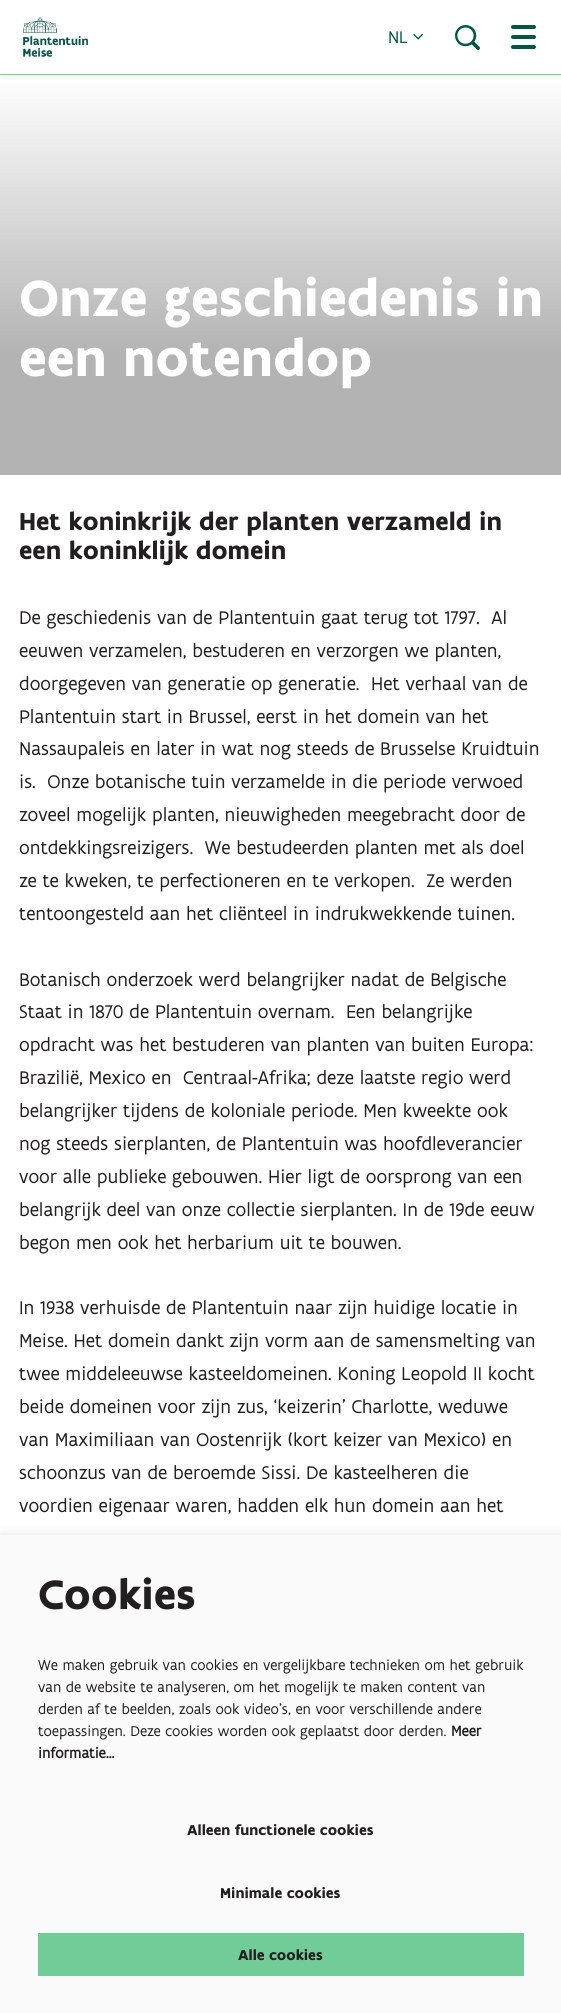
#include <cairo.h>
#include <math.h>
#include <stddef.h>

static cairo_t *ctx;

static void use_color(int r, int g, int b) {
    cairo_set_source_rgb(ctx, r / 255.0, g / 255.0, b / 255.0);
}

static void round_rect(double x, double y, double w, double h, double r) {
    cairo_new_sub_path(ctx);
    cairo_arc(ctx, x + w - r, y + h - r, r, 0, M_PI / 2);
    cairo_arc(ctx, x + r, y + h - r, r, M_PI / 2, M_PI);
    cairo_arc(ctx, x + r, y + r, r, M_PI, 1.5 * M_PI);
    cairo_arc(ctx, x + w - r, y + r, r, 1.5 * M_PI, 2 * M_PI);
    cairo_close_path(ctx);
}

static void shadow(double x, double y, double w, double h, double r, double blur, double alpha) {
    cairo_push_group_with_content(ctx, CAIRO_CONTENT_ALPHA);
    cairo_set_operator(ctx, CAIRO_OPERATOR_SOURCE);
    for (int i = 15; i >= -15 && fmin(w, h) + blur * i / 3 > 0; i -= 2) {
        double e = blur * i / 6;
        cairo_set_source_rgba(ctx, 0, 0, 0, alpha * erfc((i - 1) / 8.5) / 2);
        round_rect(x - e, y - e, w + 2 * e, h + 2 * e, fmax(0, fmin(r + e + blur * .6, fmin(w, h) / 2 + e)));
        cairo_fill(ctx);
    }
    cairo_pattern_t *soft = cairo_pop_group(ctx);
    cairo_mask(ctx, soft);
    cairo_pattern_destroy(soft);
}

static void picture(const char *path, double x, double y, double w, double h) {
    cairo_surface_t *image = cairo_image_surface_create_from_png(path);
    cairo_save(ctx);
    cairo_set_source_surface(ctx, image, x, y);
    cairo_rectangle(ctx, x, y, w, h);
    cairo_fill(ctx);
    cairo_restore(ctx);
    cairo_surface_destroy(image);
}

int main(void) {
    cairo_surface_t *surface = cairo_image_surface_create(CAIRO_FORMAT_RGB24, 561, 2013);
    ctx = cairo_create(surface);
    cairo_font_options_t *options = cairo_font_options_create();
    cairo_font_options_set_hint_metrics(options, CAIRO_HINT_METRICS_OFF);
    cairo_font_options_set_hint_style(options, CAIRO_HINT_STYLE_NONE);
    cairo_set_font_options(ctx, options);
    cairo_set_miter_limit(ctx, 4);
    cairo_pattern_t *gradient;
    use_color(255, 255, 255);
    cairo_paint(ctx);
    gradient = cairo_pattern_create_linear(281, 475, 281, 75);
    cairo_pattern_add_color_stop_rgba(gradient, 0, 0.702, 0.702, 0.702, 1);
    cairo_pattern_add_color_stop_rgba(gradient, 0.3, 0.702, 0.702, 0.702, 1);
    cairo_pattern_add_color_stop_rgba(gradient, 1, 1, 1, 1, 1);
    cairo_set_source(ctx, gradient);
    cairo_pattern_destroy(gradient);
    cairo_rectangle(ctx, 0, 84, 561, 391);
    cairo_fill(ctx);
    cairo_save(ctx);
    cairo_rectangle(ctx, 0, 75, 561, 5);
    cairo_clip(ctx);
    use_color(0, 0, 0);
    shadow(0, 0, 561, 75, 0, 6, 0.1);
    cairo_restore(ctx);
    use_color(113, 204, 152);
    cairo_rectangle(ctx, 0, 74, 561, 1);
    cairo_fill(ctx);
    picture("img1.png", 23, 17, 66, 40);
    cairo_select_font_face(ctx, "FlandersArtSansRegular", CAIRO_FONT_SLANT_NORMAL, CAIRO_FONT_WEIGHT_NORMAL);
    cairo_set_font_size(ctx, 18);
    use_color(0, 86, 67);
    cairo_move_to(ctx, 388, 43);
    cairo_show_text(ctx, "NL");
    picture("img2.png", 413, 33, 10, 7);
    picture("img3.png", 455, 25, 25, 25);
    round_rect(511, 25, 25, 4, 2);
    cairo_fill(ctx);
    round_rect(511, 35, 25, 4, 2);
    cairo_fill(ctx);
    round_rect(511, 45, 25, 4, 2);
    cairo_fill(ctx);
    cairo_select_font_face(ctx, "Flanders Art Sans", CAIRO_FONT_SLANT_NORMAL, CAIRO_FONT_WEIGHT_BOLD);
    cairo_set_font_size(ctx, 54.75);
    use_color(255, 255, 255);
    cairo_move_to(ctx, 19, 316);
    cairo_show_text(ctx, "Onze geschiedenis in");
    cairo_move_to(ctx, 19, 376);
    cairo_show_text(ctx, "een notendop");
    cairo_set_font_size(ctx, 26.25);
    use_color(35, 31, 32);
    cairo_move_to(ctx, 19, 530);
    cairo_show_text(ctx, "Het koninkrijk der planten verzameld in");
    cairo_move_to(ctx, 19, 559);
    cairo_show_text(ctx, "een koninklijk domein");
    cairo_select_font_face(ctx, "FlandersArtSansRegular", CAIRO_FONT_SLANT_NORMAL, CAIRO_FONT_WEIGHT_NORMAL);
    cairo_set_font_size(ctx, 19.7);
    cairo_move_to(ctx, 19, 624);
    cairo_show_text(ctx, "De geschiedenis van de Plantentuin gaat terug tot 1797.  Al");
    cairo_move_to(ctx, 19, 657);
    cairo_show_text(ctx, "eeuwen verzamelen, bestuderen en verzorgen we planten,");
    cairo_move_to(ctx, 19, 690);
    cairo_show_text(ctx, "doorgegeven van generatie op generatie.  Het verhaal van de");
    cairo_move_to(ctx, 19, 723);
    cairo_show_text(ctx, "Plantentuin start in Brussel, eerst in het domein van het");
    cairo_move_to(ctx, 19, 755);
    cairo_show_text(ctx, "Nassaupaleis en later in wat nog steeds de Brusselse Kruidtuin");
    cairo_move_to(ctx, 19, 788);
    cairo_show_text(ctx, "is.  Onze botanische tuin verzamelde in die periode verwoed");
    cairo_move_to(ctx, 19, 821);
    cairo_show_text(ctx, "zoveel mogelijk planten, nieuwigheden meegebracht door de");
    cairo_move_to(ctx, 19, 854);
    cairo_show_text(ctx, "ontdekkingsreizigers.  We bestudeerden planten met als doel");
    cairo_move_to(ctx, 19, 887);
    cairo_show_text(ctx, "ze te kweken, te perfectioneren en te verkopen.  Ze werden");
    cairo_move_to(ctx, 19, 920);
    cairo_show_text(ctx, "tentoongesteld aan het cliënteel in indrukwekkende tuinen.");
    cairo_move_to(ctx, 19, 986);
    cairo_show_text(ctx, "Botanisch onderzoek werd belangrijker nadat de Belgische");
    cairo_move_to(ctx, 19, 1018);
    cairo_show_text(ctx, "Staat in 1870 de Plantentuin overnam.  Een belangrijke");
    cairo_move_to(ctx, 19, 1051);
    cairo_show_text(ctx, "opdracht was het bestuderen van planten van buiten Europa:");
    cairo_move_to(ctx, 19, 1084);
    cairo_show_text(ctx, "Brazilië, Mexico en  Centraal-Afrika; deze laatste regio werd");
    cairo_move_to(ctx, 19, 1117);
    cairo_show_text(ctx, "belangrijker tijdens de koloniale periode. Men kweekte ook");
    cairo_move_to(ctx, 19, 1150);
    cairo_show_text(ctx, "nog steeds sierplanten, de Plantentuin was hoofdleverancier");
    cairo_move_to(ctx, 19, 1183);
    cairo_show_text(ctx, "voor alle publieke gebouwen. Hier ligt de oorsprong van een");
    cairo_move_to(ctx, 19, 1216);
    cairo_show_text(ctx, "belangrijk deel van onze collectie sierplanten. In de 19de eeuw");
    cairo_move_to(ctx, 19, 1249);
    cairo_show_text(ctx, "begon men ook het herbarium uit te bouwen.");
    cairo_move_to(ctx, 19, 1314);
    cairo_show_text(ctx, "In 1938 verhuisde de Plantentuin naar zijn huidige locatie in");
    cairo_move_to(ctx, 19, 1347);
    cairo_show_text(ctx, "Meise. Het domein dankt zijn vorm aan de samensmelting van");
    cairo_move_to(ctx, 19, 1380);
    cairo_show_text(ctx, "twee middeleeuwse kasteeldomeinen. Koning Leopold II kocht");
    cairo_move_to(ctx, 19, 1413);
    cairo_show_text(ctx, "beide domeinen voor zijn zus, ‘keizerin’ Charlotte, weduwe");
    cairo_move_to(ctx, 19, 1446);
    cairo_show_text(ctx, "van Maximiliaan van Oostenrijk (kort keizer van Mexico) en");
    cairo_move_to(ctx, 19, 1479);
    cairo_show_text(ctx, "schoonzus van de beroemde Sissi. De kasteelheren die");
    cairo_move_to(ctx, 19, 1512);
    cairo_show_text(ctx, "voordien eigenaar waren, hadden elk hun domein aan het");
    use_color(0, 0, 0);
    shadow(0, 1535, 561, 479, 0, 6, 0.1);
    use_color(250, 250, 250);
    cairo_rectangle(ctx, 0, 1535, 561, 478);
    cairo_fill(ctx);
    cairo_select_font_face(ctx, "Flanders Art Sans", CAIRO_FONT_SLANT_NORMAL, CAIRO_FONT_WEIGHT_BOLD);
    cairo_set_font_size(ctx, 44);
    use_color(35, 31, 32);
    cairo_move_to(ctx, 38, 1609);
    cairo_show_text(ctx, "Cookies");
    cairo_select_font_face(ctx, "FlandersArtSansRegular", CAIRO_FONT_SLANT_NORMAL, CAIRO_FONT_WEIGHT_NORMAL);
    cairo_set_font_size(ctx, 15.3);
    cairo_move_to(ctx, 38, 1670);
    cairo_show_text(ctx, "We maken gebruik van cookies en vergelijkbare technieken om het gebruik");
    cairo_move_to(ctx, 38, 1692);
    cairo_show_text(ctx, "van de website te analyseren, om het mogelijk te maken content van");
    cairo_move_to(ctx, 38, 1714);
    cairo_show_text(ctx, "derden af te beelden, zoals ook video’s, en voor verschillende andere");
    cairo_move_to(ctx, 38, 1736);
    cairo_show_text(ctx, "toepassingen. Deze cookies worden ook geplaatst door derden.");
    cairo_select_font_face(ctx, "FlandersArtSansRegular", CAIRO_FONT_SLANT_NORMAL, CAIRO_FONT_WEIGHT_BOLD);
    cairo_move_to(ctx, 451, 1736);
    cairo_show_text(ctx, "Meer");
    cairo_move_to(ctx, 38, 1758);
    cairo_show_text(ctx, "informatie…");
    cairo_select_font_face(ctx, "Flanders Art Sans", CAIRO_FONT_SLANT_NORMAL, CAIRO_FONT_WEIGHT_BOLD);
    cairo_move_to(ctx, 187, 1835);
    cairo_show_text(ctx, "Alleen functionele cookies");
    cairo_move_to(ctx, 220, 1898);
    cairo_show_text(ctx, "Minimale cookies");
    use_color(113, 204, 152);
    cairo_rectangle(ctx, 38, 1933, 486, 43);
    cairo_fill(ctx);
    use_color(35, 31, 32);
    cairo_move_to(ctx, 238, 1960);
    cairo_show_text(ctx, "Alle cookies");
    cairo_surface_write_to_png(surface, "result.png");
    cairo_font_options_destroy(options);
    cairo_destroy(ctx);
    cairo_surface_destroy(surface);
    return 0;
}
